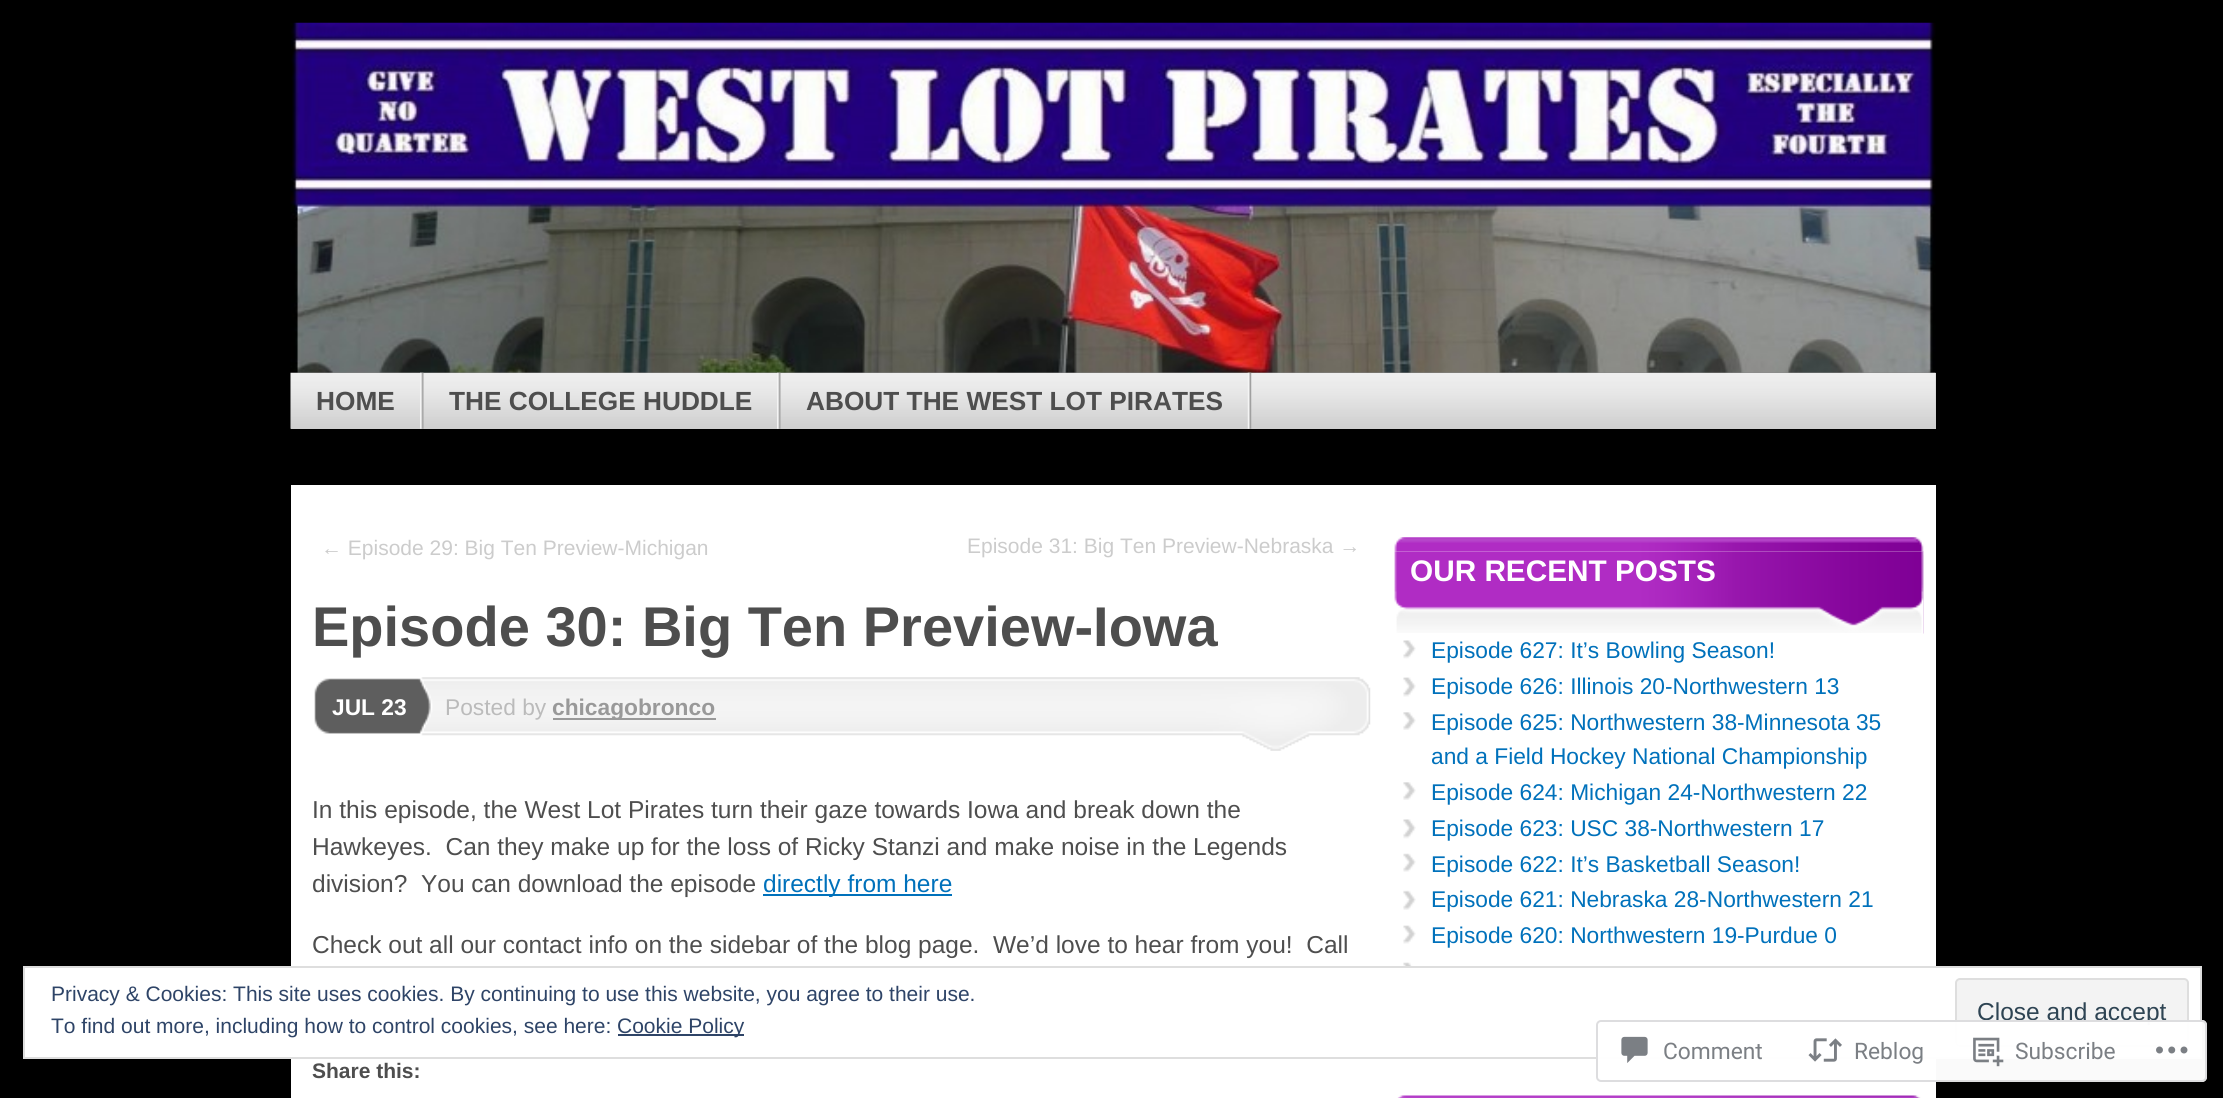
#include <cairo.h>
#include <math.h>
#include <stddef.h>

static cairo_t *ctx;

static void use_color(int r, int g, int b) {
    cairo_set_source_rgb(ctx, r / 255.0, g / 255.0, b / 255.0);
}

static void round_rect(double x, double y, double w, double h, double r) {
    cairo_new_sub_path(ctx);
    cairo_arc(ctx, x + w - r, y + h - r, r, 0, M_PI / 2);
    cairo_arc(ctx, x + r, y + h - r, r, M_PI / 2, M_PI);
    cairo_arc(ctx, x + r, y + r, r, M_PI, 1.5 * M_PI);
    cairo_arc(ctx, x + w - r, y + r, r, 1.5 * M_PI, 2 * M_PI);
    cairo_close_path(ctx);
}

static void picture(const char *path, double x, double y, double w, double h) {
    cairo_surface_t *image = cairo_image_surface_create_from_png(path);
    cairo_save(ctx);
    cairo_set_source_surface(ctx, image, x, y);
    cairo_rectangle(ctx, x, y, w, h);
    cairo_fill(ctx);
    cairo_restore(ctx);
    cairo_surface_destroy(image);
}

int main(void) {
    cairo_surface_t *surface = cairo_image_surface_create(CAIRO_FORMAT_RGB24, 2223, 1098);
    ctx = cairo_create(surface);
    cairo_font_options_t *options = cairo_font_options_create();
    cairo_font_options_set_hint_metrics(options, CAIRO_HINT_METRICS_OFF);
    cairo_font_options_set_hint_style(options, CAIRO_HINT_STYLE_NONE);
    cairo_set_font_options(ctx, options);
    cairo_set_miter_limit(ctx, 4);
    use_color(0, 0, 0);
    cairo_paint(ctx);
    picture("img1.png", 290, 22, 1646, 351);
    use_color(208, 208, 208);
    cairo_rectangle(ctx, 291, 373, 1645, 56);
    cairo_fill(ctx);
    picture("img2.png", 290, 372, 1646, 57);
    picture("img3.png", 420, 372, 4, 57);
    cairo_select_font_face(ctx, "Liberation Sans", CAIRO_FONT_SLANT_NORMAL, CAIRO_FONT_WEIGHT_BOLD);
    cairo_set_font_size(ctx, 26.25);
    use_color(78, 78, 78);
    cairo_move_to(ctx, 316, 410);
    cairo_show_text(ctx, "HOME");
    picture("img4.png", 777, 372, 4, 57);
    cairo_move_to(ctx, 449, 410);
    cairo_show_text(ctx, "THE COLLEGE HUDDLE");
    picture("img5.png", 1247, 372, 5, 57);
    cairo_move_to(ctx, 806, 410);
    cairo_show_text(ctx, "ABOUT THE WEST LOT PIRATES");
    use_color(255, 255, 255);
    cairo_rectangle(ctx, 291, 485, 1645, 613);
    cairo_fill(ctx);
    cairo_select_font_face(ctx, "Liberation Sans", CAIRO_FONT_SLANT_NORMAL, CAIRO_FONT_WEIGHT_NORMAL);
    cairo_set_font_size(ctx, 21);
    use_color(204, 204, 204);
    cairo_move_to(ctx, 321, 555);
    cairo_show_text(ctx, "← Episode 29: Big Ten Preview-Michigan");
    cairo_move_to(ctx, 967, 553);
    cairo_show_text(ctx, "Episode 31: Big Ten Preview-Nebraska →");
    cairo_select_font_face(ctx, "Liberation Sans", CAIRO_FONT_SLANT_NORMAL, CAIRO_FONT_WEIGHT_BOLD);
    cairo_set_font_size(ctx, 56);
    use_color(78, 78, 78);
    cairo_move_to(ctx, 312, 646);
    cairo_show_text(ctx, "Episode 30: Big Ten Preview-Iowa");
    picture("img6.png", 314, 678, 19, 56);
    picture("img7.png", 333, 677, 101, 59);
    cairo_set_font_size(ctx, 22.75);
    use_color(255, 255, 255);
    cairo_move_to(ctx, 332, 715);
    cairo_show_text(ctx, "JUL 23");
    picture("img8.png", 434, 677, 937, 74);
    cairo_select_font_face(ctx, "Liberation Sans", CAIRO_FONT_SLANT_NORMAL, CAIRO_FONT_WEIGHT_NORMAL);
    use_color(187, 187, 187);
    cairo_move_to(ctx, 445, 715);
    cairo_show_text(ctx, "Posted by");
    use_color(153, 153, 153);
    cairo_rectangle(ctx, 553, 718, 163, 2);
    cairo_fill(ctx);
    cairo_select_font_face(ctx, "Liberation Sans", CAIRO_FONT_SLANT_NORMAL, CAIRO_FONT_WEIGHT_BOLD);
    cairo_move_to(ctx, 552, 715);
    cairo_show_text(ctx, "chicagobronco");
    cairo_select_font_face(ctx, "Liberation Sans", CAIRO_FONT_SLANT_NORMAL, CAIRO_FONT_WEIGHT_NORMAL);
    cairo_set_font_size(ctx, 24.5);
    use_color(78, 78, 78);
    cairo_move_to(ctx, 312, 818);
    cairo_show_text(ctx, "In this episode, the West Lot Pirates turn their gaze towards Iowa and break down the");
    cairo_move_to(ctx, 312, 855);
    cairo_show_text(ctx, "Hawkeyes.  Can they make up for the loss of Ricky Stanzi and make noise in the Legends");
    cairo_move_to(ctx, 312, 892);
    cairo_show_text(ctx, "division?  You can download the episode");
    use_color(0, 113, 187);
    cairo_rectangle(ctx, 763, 894, 189, 2);
    cairo_fill(ctx);
    cairo_move_to(ctx, 763, 892);
    cairo_show_text(ctx, "directly from here");
    use_color(78, 78, 78);
    cairo_move_to(ctx, 312, 953);
    cairo_show_text(ctx, "Check out all our contact info on the sidebar of the blog page.  We’d love to hear from you!  Call");
    cairo_select_font_face(ctx, "Liberation Sans", CAIRO_FONT_SLANT_NORMAL, CAIRO_FONT_WEIGHT_BOLD);
    cairo_set_font_size(ctx, 21);
    cairo_move_to(ctx, 312, 1078);
    cairo_show_text(ctx, "Share this:");
    picture("img9.png", 1394, 537, 530, 97);
    use_color(255, 255, 255);
    cairo_rectangle(ctx, 1394, 551, 529, 83);
    cairo_fill(ctx);
    picture("img10.png", 1394, 551, 530, 82);
    cairo_set_font_size(ctx, 29.75);
    cairo_move_to(ctx, 1410, 581);
    cairo_show_text(ctx, "OUR RECENT POSTS");
    picture("img11.png", 1403, 640, 13, 19);
    cairo_select_font_face(ctx, "Liberation Sans", CAIRO_FONT_SLANT_NORMAL, CAIRO_FONT_WEIGHT_NORMAL);
    cairo_set_font_size(ctx, 22.75);
    use_color(0, 113, 187);
    cairo_move_to(ctx, 1431, 658);
    cairo_show_text(ctx, "Episode 627: It’s Bowling Season!");
    picture("img12.png", 1403, 677, 13, 20);
    cairo_move_to(ctx, 1431, 694);
    cairo_show_text(ctx, "Episode 626: Illinois 20-Northwestern 13");
    picture("img13.png", 1403, 712, 13, 18);
    cairo_move_to(ctx, 1431, 730);
    cairo_show_text(ctx, "Episode 625: Northwestern 38-Minnesota 35");
    cairo_move_to(ctx, 1431, 764);
    cairo_show_text(ctx, "and a Field Hockey National Championship");
    picture("img13.png", 1403, 782, 13, 18);
    cairo_move_to(ctx, 1431, 800);
    cairo_show_text(ctx, "Episode 624: Michigan 24-Northwestern 22");
    picture("img14.png", 1403, 819, 13, 20);
    cairo_move_to(ctx, 1431, 836);
    cairo_show_text(ctx, "Episode 623: USC 38-Northwestern 17");
    picture("img15.png", 1403, 853, 13, 19);
    cairo_move_to(ctx, 1431, 872);
    cairo_show_text(ctx, "Episode 622: It’s Basketball Season!");
    picture("img16.png", 1403, 890, 13, 20);
    cairo_move_to(ctx, 1431, 907);
    cairo_show_text(ctx, "Episode 621: Nebraska 28-Northwestern 21");
    picture("img17.png", 1403, 925, 13, 19);
    cairo_move_to(ctx, 1431, 943);
    cairo_show_text(ctx, "Episode 620: Northwestern 19-Purdue 0");
    picture("img18.png", 1403, 962, 10, 4);
    picture("img19.png", 1397, 1095, 524, 3);
    use_color(255, 255, 255);
    cairo_rectangle(ctx, 24, 967, 2177, 91);
    cairo_fill_preserve(ctx);
    use_color(222, 222, 222);
    cairo_stroke(ctx);
    cairo_set_font_size(ctx, 21);
    use_color(46, 68, 103);
    cairo_move_to(ctx, 51, 1001);
    cairo_show_text(ctx, "Privacy & Cookies: This site uses cookies. By continuing to use this website, you agree to their use.");
    cairo_move_to(ctx, 51, 1033);
    cairo_show_text(ctx, "To find out more, including how to control cookies, see here:");
    cairo_rectangle(ctx, 618, 1034, 126, 2);
    cairo_fill(ctx);
    cairo_move_to(ctx, 617, 1033);
    cairo_show_text(ctx, "Cookie Policy");
    use_color(243, 243, 243);
    round_rect(1956, 979, 232, 67, 4);
    cairo_fill_preserve(ctx);
    use_color(222, 222, 222);
    cairo_stroke(ctx);
    cairo_set_font_size(ctx, 24.5);
    use_color(46, 68, 83);
    cairo_move_to(ctx, 1977, 1020);
    cairo_show_text(ctx, "Close and accept");
    cairo_set_source_rgba(ctx, 1, 1, 1, 0.98);
    round_rect(1596, 1020, 611, 62, 5);
    cairo_fill(ctx);
    round_rect(1597, 1021, 609, 60, 4);
    cairo_set_source_rgba(ctx, 0.863, 0.863, 0.871, 0.98);
    cairo_stroke(ctx);
    picture("img20.png", 1621, 1036, 27, 27);
    cairo_select_font_face(ctx, "Roboto", CAIRO_FONT_SLANT_NORMAL, CAIRO_FONT_WEIGHT_NORMAL);
    cairo_set_font_size(ctx, 22.75);
    use_color(123, 127, 132);
    cairo_move_to(ctx, 1663, 1059);
    cairo_show_text(ctx, "Comment");
    picture("img21.png", 1808, 1038, 34, 24);
    cairo_move_to(ctx, 1854, 1059);
    cairo_show_text(ctx, "Reblog");
    picture("img22.png", 1973, 1037, 31, 30);
    cairo_move_to(ctx, 2015, 1059);
    cairo_show_text(ctx, "Subscribe");
    picture("img23.png", 2156, 1046, 32, 8);
    cairo_surface_write_to_png(surface, "result.png");
    cairo_font_options_destroy(options);
    cairo_destroy(ctx);
    cairo_surface_destroy(surface);
    return 0;
}
